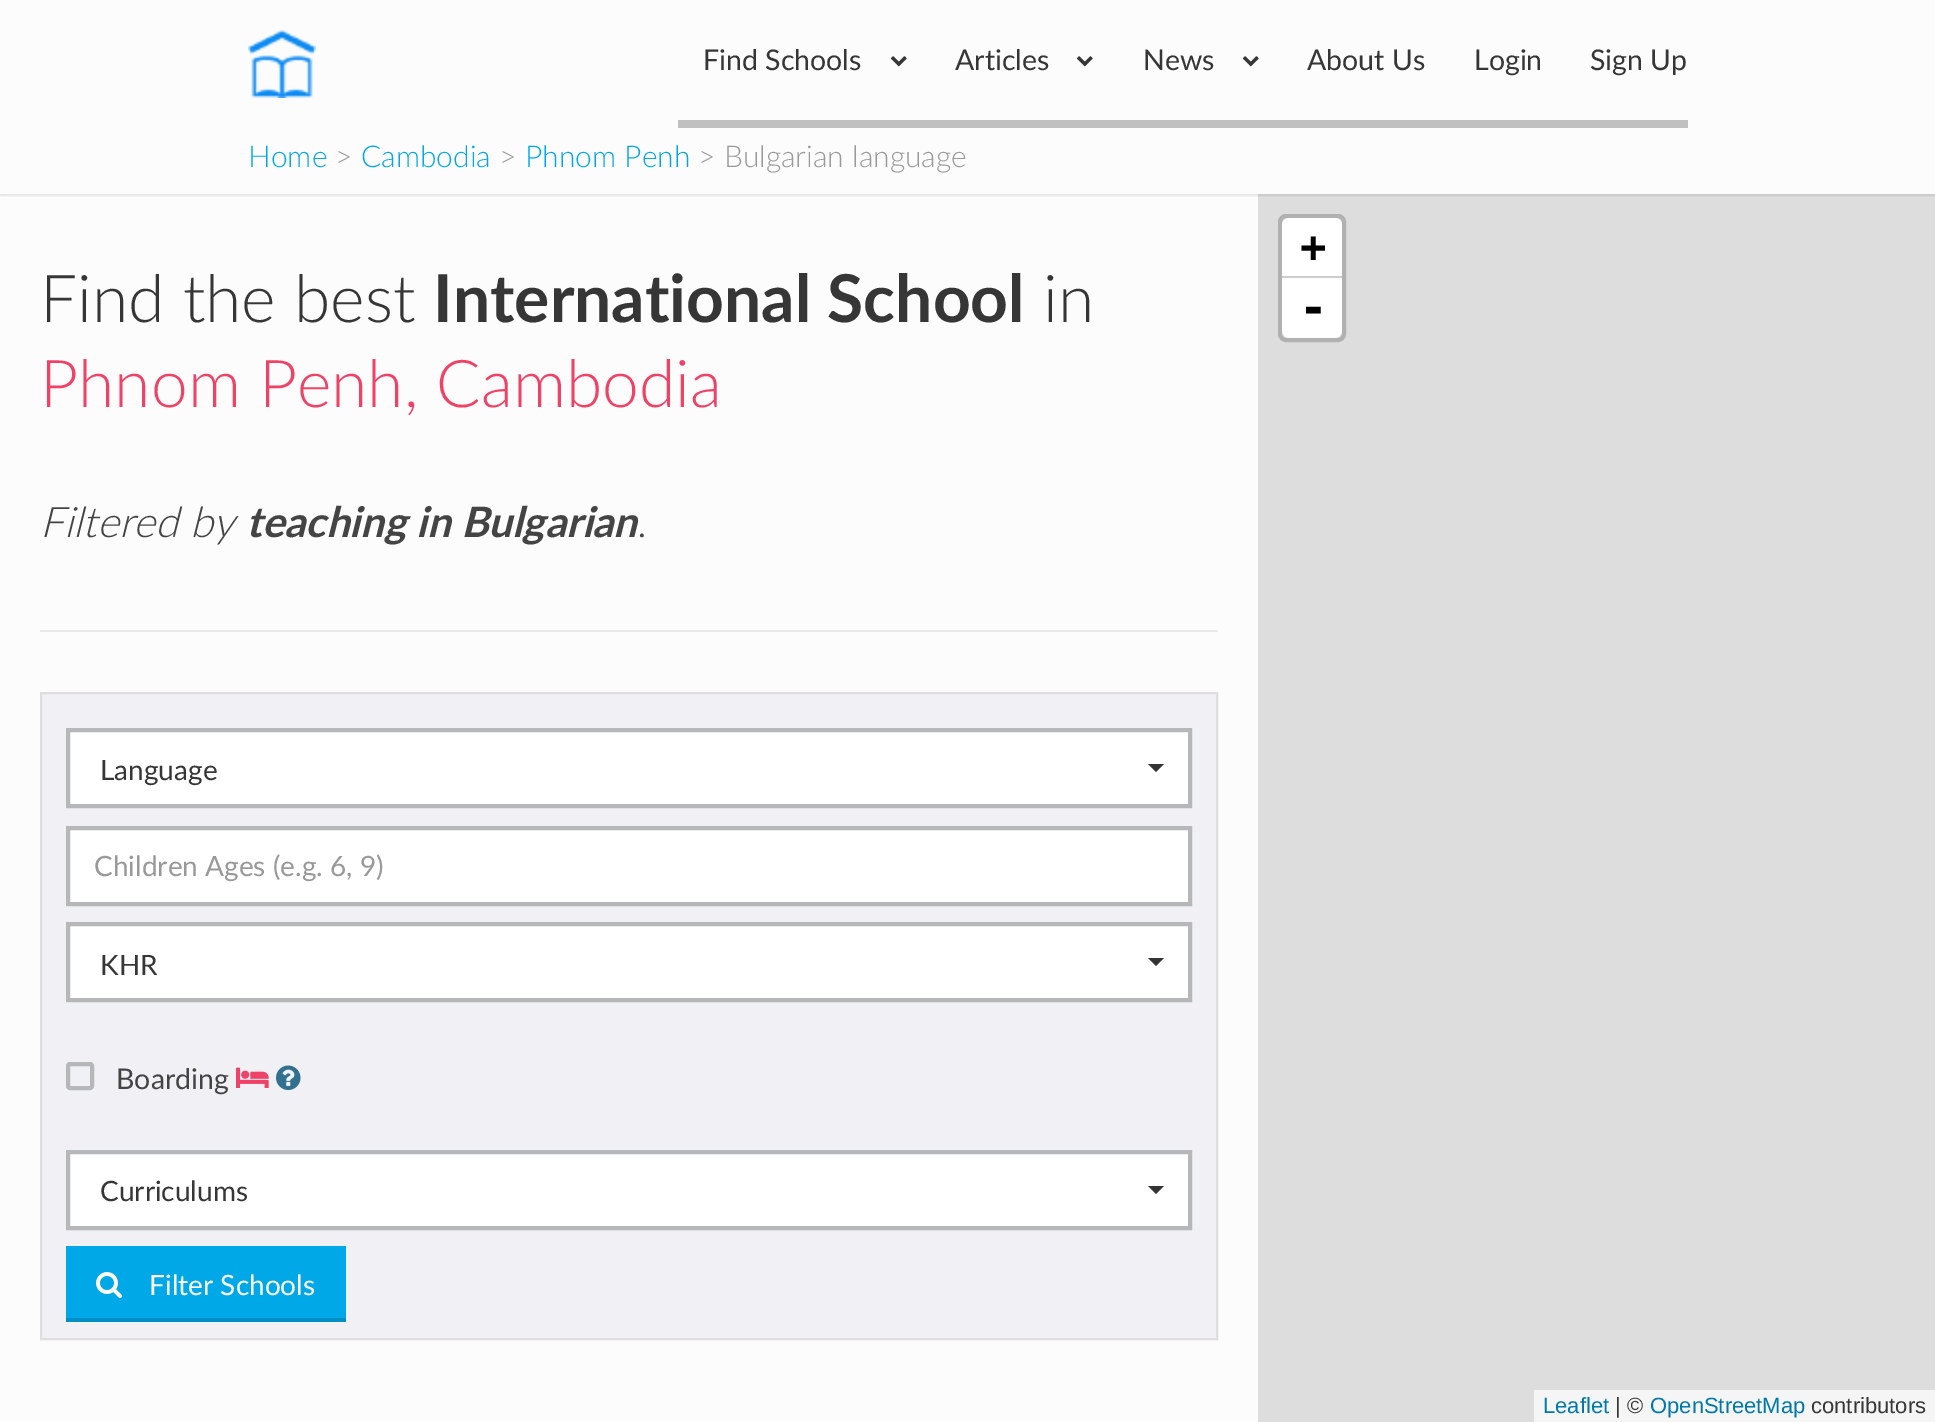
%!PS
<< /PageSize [1935 1422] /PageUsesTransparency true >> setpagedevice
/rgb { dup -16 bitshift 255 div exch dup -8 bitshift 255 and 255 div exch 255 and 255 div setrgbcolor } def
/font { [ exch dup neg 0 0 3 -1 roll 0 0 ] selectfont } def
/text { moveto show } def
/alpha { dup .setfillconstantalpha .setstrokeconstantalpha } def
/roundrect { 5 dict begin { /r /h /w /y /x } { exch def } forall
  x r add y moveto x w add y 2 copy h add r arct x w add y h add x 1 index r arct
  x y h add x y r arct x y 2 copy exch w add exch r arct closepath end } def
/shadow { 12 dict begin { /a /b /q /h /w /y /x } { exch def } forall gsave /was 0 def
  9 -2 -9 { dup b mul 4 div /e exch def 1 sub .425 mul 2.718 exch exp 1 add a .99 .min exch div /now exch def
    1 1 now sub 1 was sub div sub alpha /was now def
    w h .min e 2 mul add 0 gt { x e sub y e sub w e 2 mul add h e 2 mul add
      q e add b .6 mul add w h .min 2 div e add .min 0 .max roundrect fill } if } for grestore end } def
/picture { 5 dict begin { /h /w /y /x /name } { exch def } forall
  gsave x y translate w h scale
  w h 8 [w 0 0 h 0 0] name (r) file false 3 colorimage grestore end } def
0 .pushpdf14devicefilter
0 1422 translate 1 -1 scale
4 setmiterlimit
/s1 { /Lato-Regular 28.5 font 16#363636 rgb } def
/s2 { /Lato-Light 30 font 16#00A8E8 rgb } def
/s3 { /Lato-Light 30 font 16#999999 rgb } def
/s4 { /Lato-Light 66 font 16#363636 rgb } def
/s5 { /Lato-Bold 66 font 16#363636 rgb } def
/s6 { /Lato-Light 66 font 16#EE4266 rgb } def
/s7 { /Lato-LightItalic 42 font 16#444444 rgb } def
/s8 { /Lato-BoldItalic 42 font 16#444444 rgb } def
/s9 { /Lato-Light 42 font 16#444444 rgb } def
/s10 { /Lato-Regular 28 font 16#363636 rgb } def
/s11 { /Lato-Regular 28 font 16#999999 rgb } def
/s12 { /Lato-Regular 28.5 font 16#444444 rgb } def
/s13 { /Lato-Regular 28 font 16#FFFFFF rgb } def
/s14 { /DejaVuSansMono-Bold 44 font 16#000000 rgb } def
/s15 { /DejaVuSansMono-Bold 48 font 16#000000 rgb } def
/s16 { /LiberationSans-Regular 22 font 16#0078A8 rgb } def
/s17 { /LiberationSans-Regular 22 font 16#363636 rgb } def
16#FDFCFC rgb
0 0 1935 1422 rectfill
16#DDDDDD rgb
1258 194 677 1228 rectfill
gsave
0 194 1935 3 rectclip
16#000000 rgb
0 2 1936 194 0 1 0.1 shadow
grestore
(pic1.raw) 248 30 68 68 picture
16#C0C0C0 rgb
678 120 1010 8 rectfill
s1
(Find Schools) 703 70 text
(pic2.raw) 890 56 17 11 picture
(Articles) 955 70 text
(pic2.raw) 1076 56 17 11 picture
(News) 1143 70 text
(pic2.raw) 1242 56 17 11 picture
(About Us) 1307 70 text
(Login) 1474 70 text
(Sign Up) 1590 70 text
s2
(Home) 248 167 text
s3
(>) 335 167 text
s2
(Cambodia) 361 167 text
s3
(>) 499 167 text
s2
(Phnom Penh) 525 167 text
s3
(> Bulgarian language) 698 167 text
16#E9E9E9 rgb
40 630 1178 2 rectfill
s4
(Find the best) 40 322 text
s5
(International School) 433 322 text
s4
(in) 1043 322 text
s6
(Phnom Penh, Cambodia) 40 407 text
s7
(Filtered by) 40 537 text
s8
(teaching in Bulgarian) 246 537 text
s9
(.) 637 537 text
16#F1F1F5 rgb
41 693 moveto 1217 693 lineto 1217 1339 lineto 41 1339 lineto closepath gsave fill grestore
16#DFDDDD rgb
2 setlinewidth
stroke
16#FFFFFF rgb
68 730 moveto 1190 730 lineto 1190 806 lineto 68 806 lineto closepath gsave fill grestore
16#B6B7B8 rgb
4 setlinewidth
stroke
s10
(Language) 100 780 text
16#333333 rgb
1148 764 moveto 1164 764 lineto 1156 772 lineto closepath fill
16#FFFFFF rgb
68 828 moveto 1190 828 lineto 1190 904 lineto 68 904 lineto closepath gsave fill grestore
16#B6B7B8 rgb
stroke
s11
(Children Ages \(e.g. 6, 9\)) 94 876 text
16#FFFFFF rgb
68 924 moveto 1190 924 lineto 1190 1000 lineto 68 1000 lineto closepath gsave fill grestore
16#B6B7B8 rgb
stroke
s10
(KHR) 100 975 text
16#333333 rgb
1148 958 moveto 1164 958 lineto 1156 966 lineto closepath fill
16#B6B7B8 rgb
68 1064 24 24 2 roundrect stroke
s12
(Boarding) 116 1089 text
(pic3.raw) 236 1067 33 21 picture
(pic4.raw) 276 1065 25 25 picture
16#FFFFFF rgb
68 1152 moveto 1190 1152 lineto 1190 1228 lineto 68 1228 lineto closepath gsave fill grestore
16#B6B7B8 rgb
stroke
s10
(Curriculums) 100 1201 text
16#333333 rgb
1148 1186 moveto 1164 1186 lineto 1156 1194 lineto closepath fill
16#00A8E8 rgb
66 1246 280 72 rectfill
(pic5.raw) 96 1272 26 26 picture
s13
(Filter Schools) 149 1295 text
16#008FC5 rgb
66 1318 280 4 rectfill
16#B1B1B1 rgb
1280 216 64 124 6 roundrect stroke
16#FFFFFF rgb
1290 218 moveto 1334 218 lineto 1338.5 218 1342 221.5 1342 226 curveto 1342 278 lineto 1282 278 lineto 1282 226 lineto 1282 221.5 1285.5 218 1290 218 curveto closepath fill
16#CCCCCC rgb
1282 276 60 2 rectfill
s14
(+) 1300 262 text
16#FFFFFF rgb
1282 278 moveto 1342 278 lineto 1342 330 lineto 1342 334.5 1338.5 338 1334 338 curveto 1290 338 lineto 1285.5 338 1282 334.5 1282 330 curveto closepath fill
s15
(-) 1299 324 text
16#F5F5F5 rgb
1534 1390 401 32 rectfill
s16
(Leaflet) 1543 1413 text
s17
(| ©) 1615 1413 text
s16
(OpenStreetMap) 1650 1413 text
s17
(contributors) 1811 1413 text
.poppdf14devicefilter showpage
